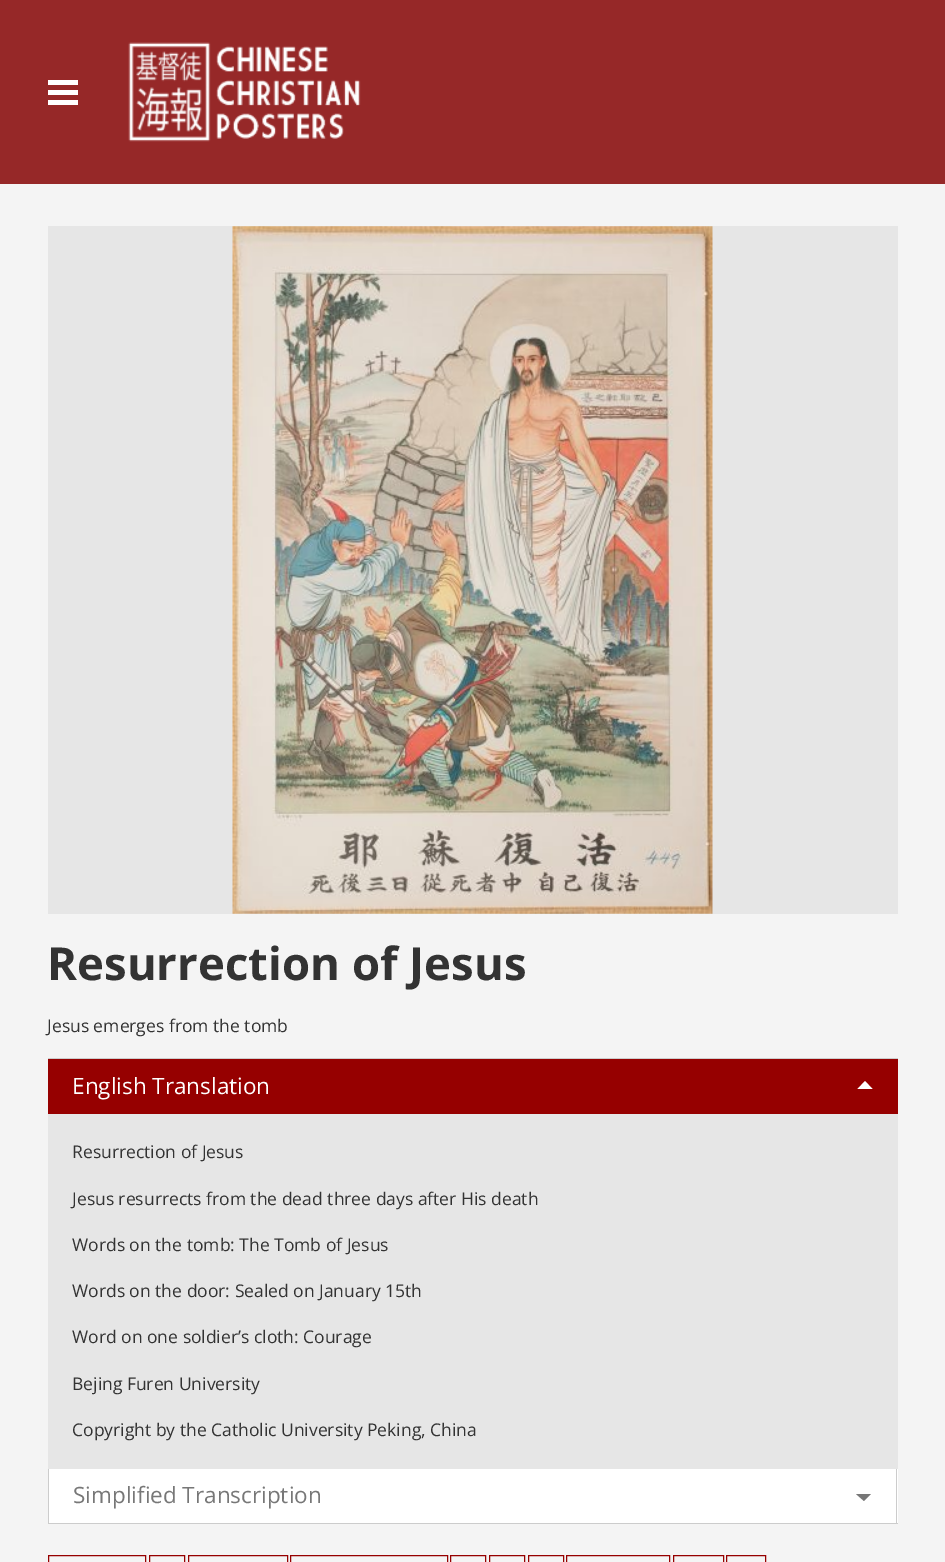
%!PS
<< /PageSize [945 1562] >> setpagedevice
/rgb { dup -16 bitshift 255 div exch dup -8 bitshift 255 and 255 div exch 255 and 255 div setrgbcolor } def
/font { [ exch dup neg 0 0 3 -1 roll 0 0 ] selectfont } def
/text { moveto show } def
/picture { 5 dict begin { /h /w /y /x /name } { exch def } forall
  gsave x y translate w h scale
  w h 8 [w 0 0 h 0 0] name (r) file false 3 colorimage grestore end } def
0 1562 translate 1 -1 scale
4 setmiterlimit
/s1 { /OpenSans-Bold 45.5 font 16#333333 rgb } def
/s2 { /OpenSans-Regular 17.5 font 16#333333 rgb } def
/s3 { /OpenSans-Regular 22.5 font 16#FFFFFF rgb } def
/s4 { /OpenSans-Regular 22.5 font 16#777777 rgb } def
16#962828 rgb
0 0 945 1562 rectfill
16#FFFFFF rgb
48 80 30 5 rectfill
48 90 30 5 rectfill
48 100 30 5 rectfill
(pic1.raw) 128 42 233 100 picture
16#F4F4F4 rgb
0 184 945 1378 rectfill
16#E6E6E6 rgb
48 226 850 688 rectfill
(pic2.raw) 232 226 481 688 picture
s1
(Resurrection of Jesus) 47 980 text
s2
(Jesus emerges from the tomb) 47 1032 text
16#CCCCCC rgb
48 1058 850 1 rectfill
16#960000 rgb
48 1059 850 55 rectfill
s3
(English Translation) 72 1094 text
872.5 1089 moveto 857.5 1089 lineto 865 1081 lineto closepath fill
16#E6E6E6 rgb
48 1114 850 355 rectfill
s2
(Resurrection of Jesus) 72 1158 text
(Jesus resurrects from the dead three days after His death) 72 1205 text
(Words on the tomb: The Tomb of Jesus) 72 1251 text
(Words on the door: Sealed on January 15th) 72 1297 text
(Word on one soldier’s cloth: Courage) 72 1343 text
(Bejing Furen University) 72 1390 text
(Copyright by the Catholic University Peking, China) 72 1436 text
16#FFFFFF rgb
49 1469 849 54 rectfill
16#CCCCCC rgb
896 1469 1 55 rectfill
48 1523 850 1 rectfill
48 1469 1 55 rectfill
s4
(Simplified Transcription) 73 1503 text
856 1494 moveto 871 1494 lineto 864 1501 lineto closepath fill
16#960000 rgb
48.5 1555.5 97 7 rectstroke
149.5 1555.5 35 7 rectstroke
188.5 1555.5 99 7 rectstroke
290.5 1555.5 157 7 rectstroke
450.5 1555.5 35 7 rectstroke
489.5 1555.5 35 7 rectstroke
528.5 1555.5 35 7 rectstroke
566.5 1555.5 103 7 rectstroke
673.5 1555.5 50 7 rectstroke
726.5 1555.5 39 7 rectstroke
showpage
